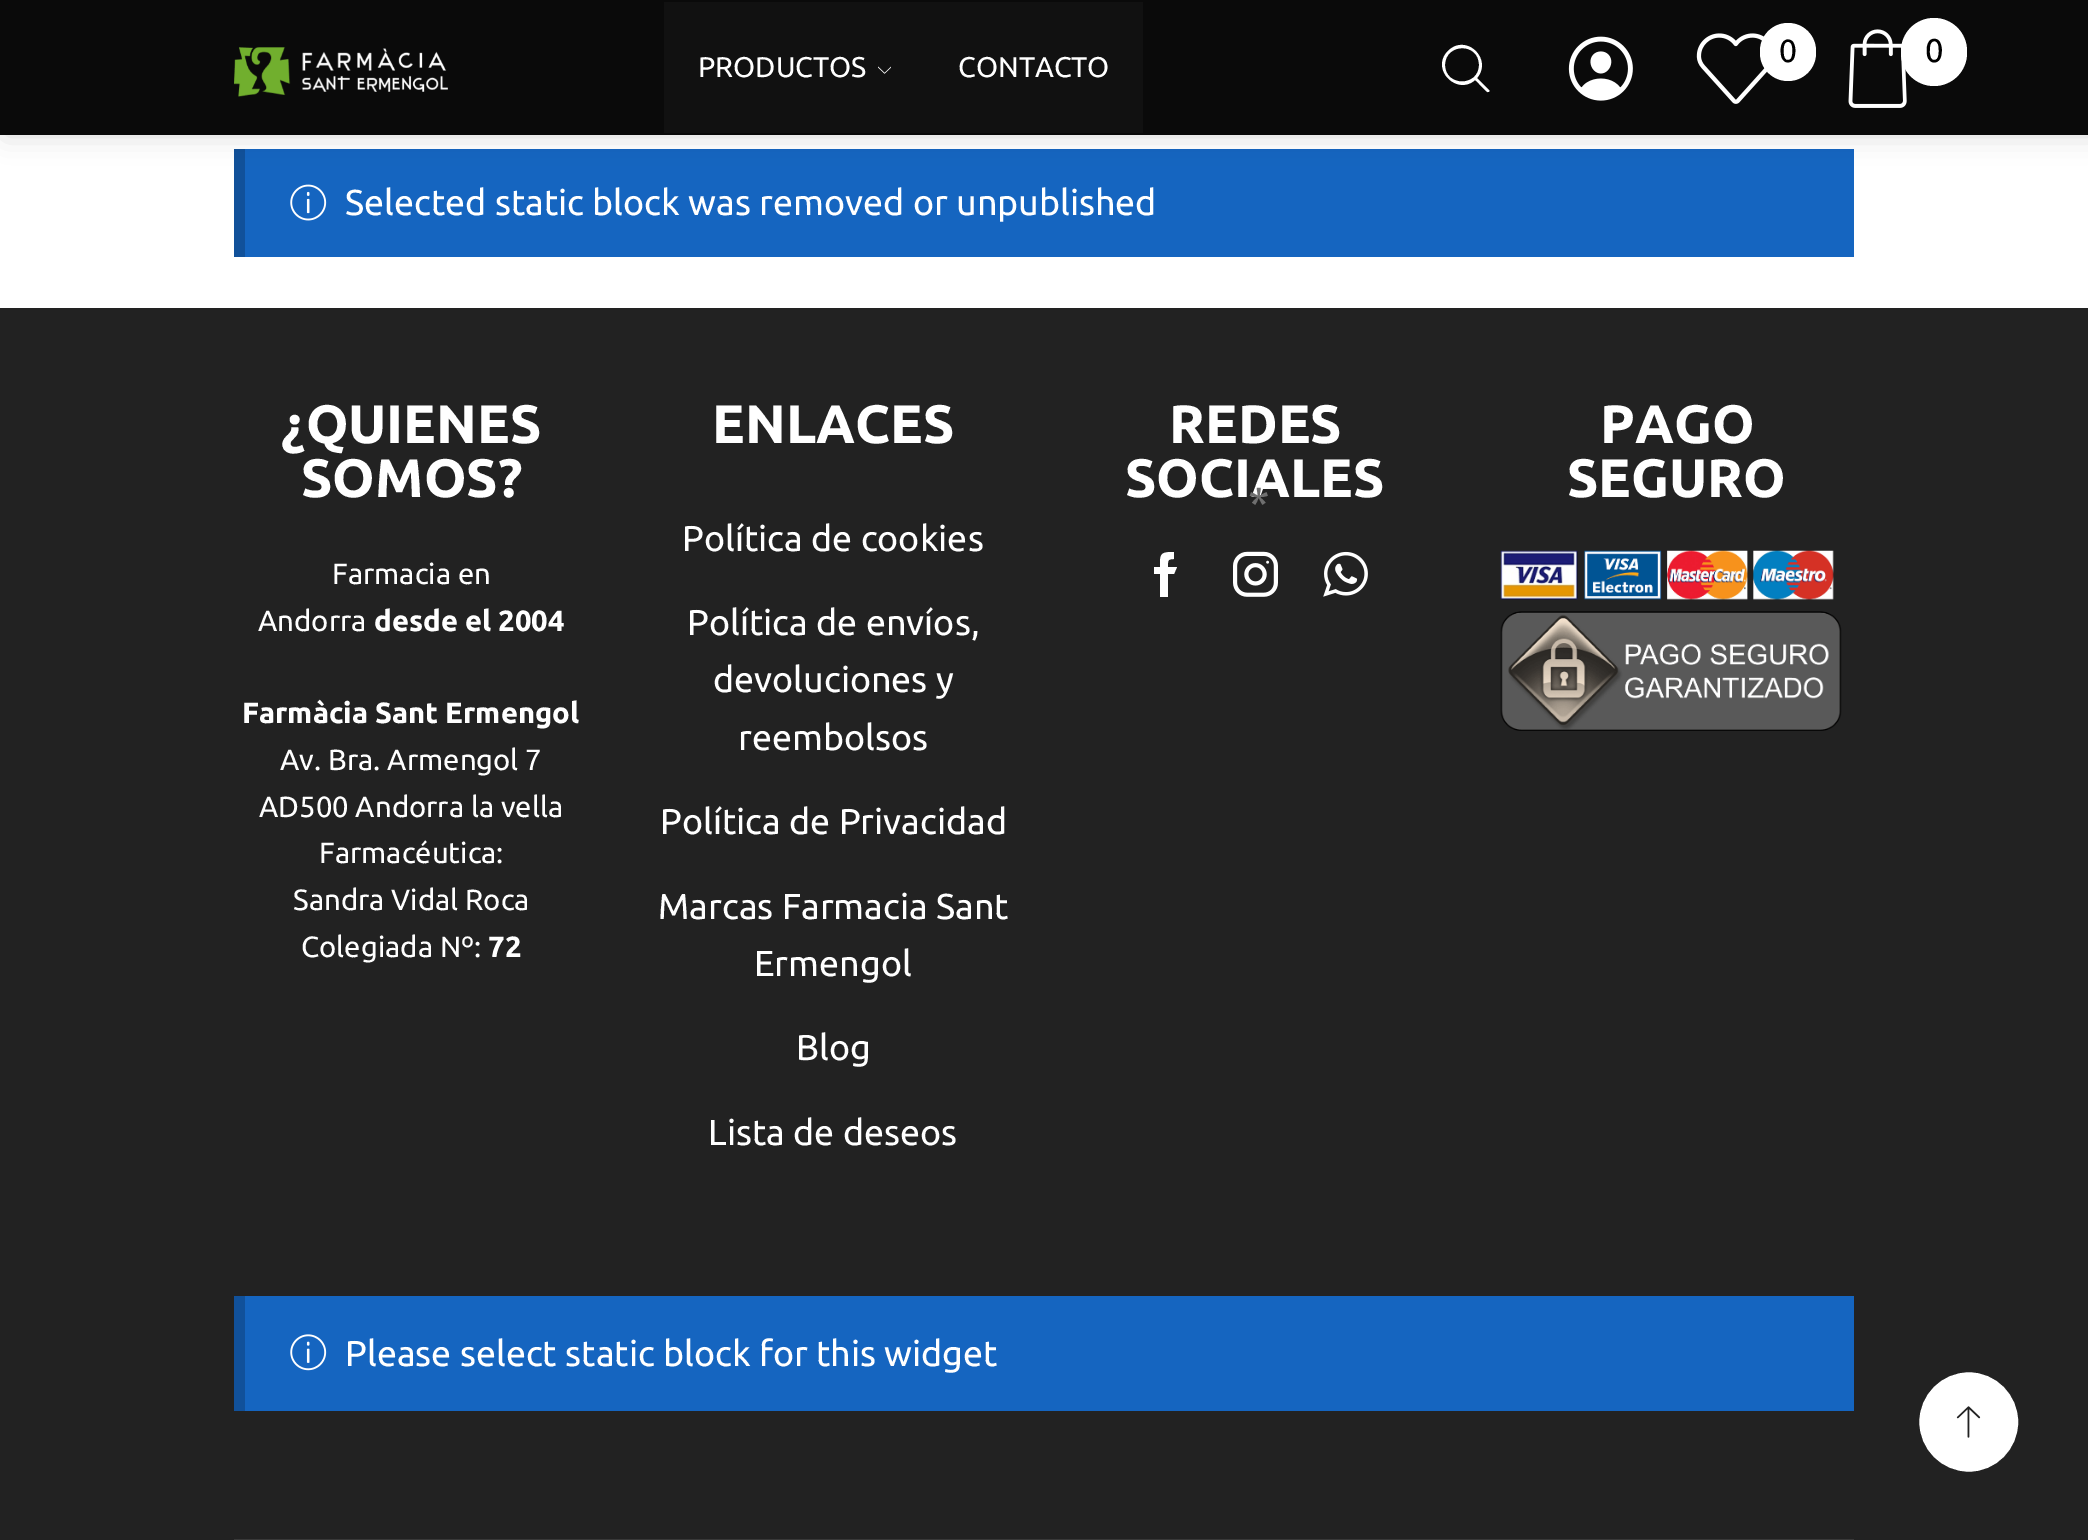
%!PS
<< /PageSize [2088 1540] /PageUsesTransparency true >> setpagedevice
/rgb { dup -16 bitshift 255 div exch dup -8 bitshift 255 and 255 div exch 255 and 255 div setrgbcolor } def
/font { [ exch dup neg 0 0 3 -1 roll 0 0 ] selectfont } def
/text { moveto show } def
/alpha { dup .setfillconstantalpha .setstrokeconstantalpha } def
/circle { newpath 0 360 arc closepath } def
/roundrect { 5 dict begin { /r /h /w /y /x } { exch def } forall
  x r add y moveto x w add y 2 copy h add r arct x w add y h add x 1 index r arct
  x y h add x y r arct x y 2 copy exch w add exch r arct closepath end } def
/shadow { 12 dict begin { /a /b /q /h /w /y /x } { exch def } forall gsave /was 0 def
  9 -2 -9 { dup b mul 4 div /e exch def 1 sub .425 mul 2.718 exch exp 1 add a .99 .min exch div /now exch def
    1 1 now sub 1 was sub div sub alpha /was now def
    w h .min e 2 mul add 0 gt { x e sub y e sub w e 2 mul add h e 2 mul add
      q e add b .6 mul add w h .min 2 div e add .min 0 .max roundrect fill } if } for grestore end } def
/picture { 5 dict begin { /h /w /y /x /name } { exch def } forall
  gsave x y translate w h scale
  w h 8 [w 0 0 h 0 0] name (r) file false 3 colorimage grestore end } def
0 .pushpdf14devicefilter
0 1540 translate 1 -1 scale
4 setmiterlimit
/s1 { /Ubuntu-Regular 32 font 16#000000 rgb } def
/s2 { /Ubuntu-Regular 33 font 16#000000 rgb } def
/s3 { /Ubuntu-Bold 54 font 16#FFFFFF rgb } def
/s4 { /Ubuntu-Regular 45 font 16#6F6F6F rgb } def
/s5 { /Ubuntu-Regular 28.5 font 16#FFFFFF rgb } def
/s6 { /Ubuntu-Regular 35.9 font 16#FFFFFF rgb } def
/s7 { /Ubuntu-Regular 29.25 font 16#FFFFFF rgb } def
/s8 { /Ubuntu-Bold 29.25 font 16#FFFFFF rgb } def
16#FFFFFF rgb
0 0 2088 1540 rectfill
16#1565C0 rgb
245 149 1609 108 rectfill
16#11519A rgb
234 149 11 108 rectfill
16#000000 rgb
5 0 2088 135 0 13.5 0.15 shadow
16#0A0A0A rgb
0 0 2088 135 rectfill
(pic1.raw) 1696 33 72 71 picture
16#FFFFFF rgb
1760 23 56 58 28 roundrect fill
s1
(0) 1779 62 text
(pic2.raw) 1848 29 59 79 picture
16#FFFFFF rgb
1901 18 66 68 33 roundrect fill
s2
(0) 1925 62 text
(pic3.raw) 1568 36 65 65 picture
16#222222 rgb
0 308 2088 1232 rectfill
s3
(SOCIALES) 1125 497 text
s4
(*) 1248 519 text
(pic4.raw) 234 47 214 50 picture
16#111111 rgb
664 2 479 131 rectfill
s5
(PRODUCTOS) 698 77 text
(pic5.raw) 878 66 13 8 picture
(CONTACTO) 958 77 text
1489 90 moveto 1477 78 lineto 1493 59 1466 33 1448 51 curveto 1430 69 1457 96 1475 80 curveto 1477 81 1487 93 1488 92 curveto 1489 92 1490 91 1489 90 curveto closepath 1479 65 moveto 1479 87 1445 87 1445 65 curveto 1445 43 1479 42 1479 65 curveto closepath fill
(pic6.raw) 290 184 37 37 picture
s6
(Selected static block was removed or unpublished) 345 215 text
s3
(¿QUIENES) 281 443 text
(SOMOS?) 301 497 text
s7
(Farmacia en) 332 584 text
(Andorra) 258 631 text
s8
(desde el 2004) 374 631 text
(Farmàcia Sant Ermengol) 242 723 text
s7
(Av. Bra. Armengol 7) 280 770 text
(AD500 Andorra la vella) 259 817 text
(Farmacéutica:) 319 863 text
(Sandra Vidal Roca) 293 910 text
(Colegiada Nº:) 301 957 text
s8
(72) 488 957 text
s3
(ENLACES) 712 443 text
s6
(Política de cookies) 682 551 text
(Política de envíos,) 687 635 text
(devoluciones y) 713 692 text
(reembolsos) 738 750 text
(Política de Privacidad) 660 834 text
(Marcas Farmacia Sant) 658 919 text
(Ermengol) 754 976 text
(Blog) 796 1060 text
(Lista de deseos) 708 1145 text
s3
(REDES) 1169 443 text
1168 567 moveto 1168 561 1167 559 1174 559 curveto 1174 552 lineto 1160 552 1160 554 1160 567 curveto 1154 567 lineto 1154 574 lineto 1160 574 lineto 1160 597 lineto 1168 597 lineto 1168 574 lineto 1174 574 lineto 1177 567 lineto closepath fill
(pic7.raw) 1233 551 45 46 picture
(pic8.raw) 1323 551 45 46 picture
(PAGO) 1600 443 text
(SEGURO) 1567 497 text
(pic9.raw) 1500 550 342 181 picture
16#1565C0 rgb
245 1296 1609 115 rectfill
16#11519A rgb
234 1296 11 115 rectfill
(pic10.raw) 290 1334 37 37 picture
s6
(Please select static block for this widget) 345 1366 text
16#393939 rgb
234 1539 1620 1 rectfill
16#FFFFFF rgb
1969 1422 51 circle gsave fill grestore
16#E1E1E1 rgb
2 setlinewidth
stroke
gsave
1915 1368 108 108 rectclip
16#222222 rgb
4.2 setlinewidth
1969 1370 moveto 1997.5 1370 2020.5 1393.5 2020.5 1422 curveto 2020.5 1450.5 1997.5 1474 1969 1474 curveto 1940 1474 1917 1450.5 1917 1422 curveto 1917 1393.5 1940 1370 1969 1370 curveto stroke
grestore
(pic11.raw) 1956 1406 25 32 picture
.poppdf14devicefilter showpage
